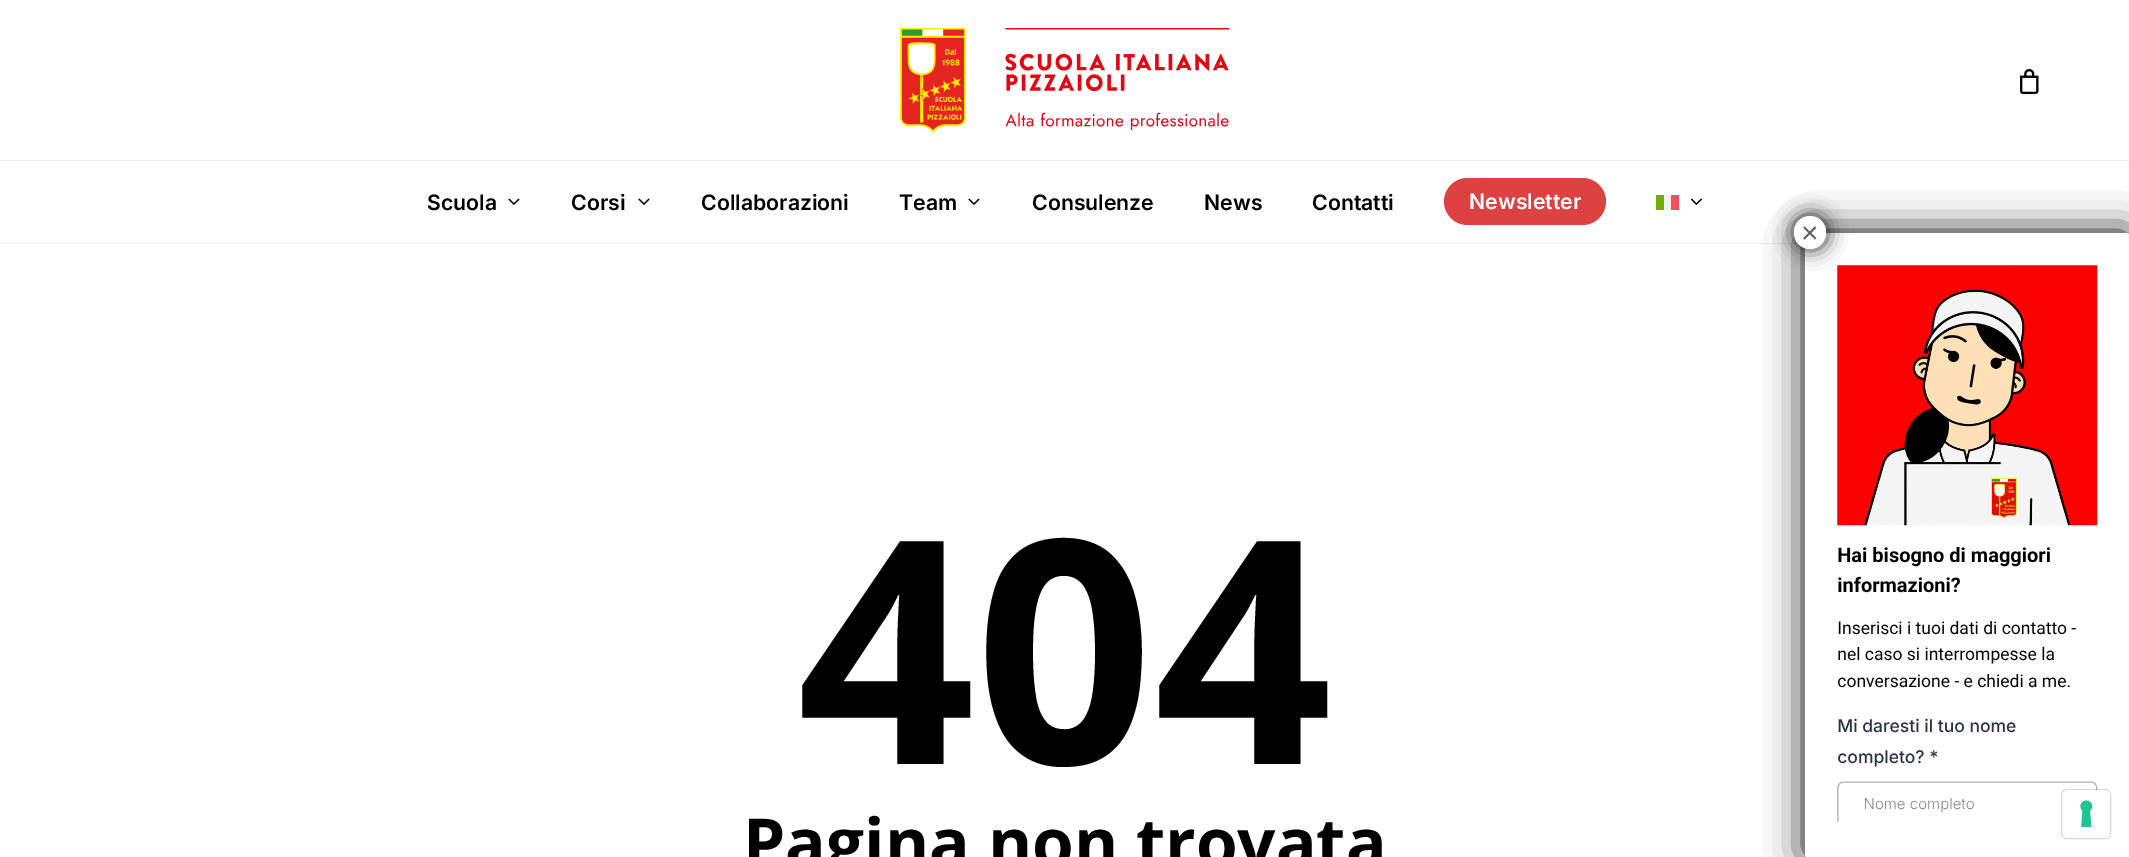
%!PS
<< /PageSize [2129 857] /PageUsesTransparency true >> setpagedevice
/rgb { dup -16 bitshift 255 div exch dup -8 bitshift 255 and 255 div exch 255 and 255 div setrgbcolor } def
/font { [ exch dup neg 0 0 3 -1 roll 0 0 ] selectfont } def
/text { moveto show } def
/alpha { dup .setfillconstantalpha .setstrokeconstantalpha } def
/roundrect { 5 dict begin { /r /h /w /y /x } { exch def } forall
  x r add y moveto x w add y 2 copy h add r arct x w add y h add x 1 index r arct
  x y h add x y r arct x y 2 copy exch w add exch r arct closepath end } def
/shadow { 12 dict begin { /a /b /q /h /w /y /x } { exch def } forall gsave /was 0 def
  9 -2 -9 { dup b mul 4 div /e exch def 1 sub .425 mul 2.718 exch exp 1 add a .99 .min exch div /now exch def
    1 1 now sub 1 was sub div sub alpha /was now def
    w h .min e 2 mul add 0 gt { x e sub y e sub w e 2 mul add h e 2 mul add
      q e add b .6 mul add w h .min 2 div e add .min 0 .max roundrect fill } if } for grestore end } def
/picture { 5 dict begin { /h /w /y /x /name } { exch def } forall
  gsave x y translate w h scale
  w h 8 [w 0 0 h 0 0] name (r) file false 3 colorimage grestore end } def
0 .pushpdf14devicefilter
0 857 translate 1 -1 scale
4 setmiterlimit
/s1 { /Inter-SemiBold 21.25 font 16#000000 rgb } def
/s2 { /Inter-SemiBold 21.25 font 16#FFFFFF rgb } def
/s3 { /OpenSans-Bold 312 font 16#000000 rgb } def
/s4 { /OpenSans-Bold 67.5 font 16#000000 rgb } def
/s5 { /LiberationSans-Regular 30 font 16#636363 rgb } def
16#FFFFFF rgb
0 0 2129 857 rectfill
16#EBEBEB rgb
0 243 1799 1 rectfill
(pic1.raw) 900 28 330 105 picture
(pic2.raw) 2020 69 19 26 picture
0 160 2129 1 rectfill
s1
(Scuola) 427 210 text
(pic3.raw) 508 198 12 7 picture
(Corsi) 571 210 text
(pic3.raw) 638 198 12 7 picture
(Collaborazioni) 701 210 text
(Team) 899 210 text
(pic3.raw) 968 198 12 7 picture
(Consulenze) 1032 210 text
(News) 1204 210 text
(Contatti) 1312 210 text
16#DD4141 rgb
1444 178 162 47 23.5 roundrect fill
s2
(Newsletter) 1469 209 text
16#73AF00 rgb
1656 195 8 15 rectfill
16#F0F0F0 rgb
1664 195 7 15 rectfill
16#FF4B55 rgb
1671 195 8 15 rectfill
(pic4.raw) 1690 198 12 7 picture
s3
(404) 797 764 text
s4
(Pagina non trovata) 743 867 text
16#020202 rgb
1805 233 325 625 4 19 1 shadow
16#FFFFFF rgb
1805 233 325 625 4 roundrect fill
(pic5.raw) 1837 265 261 557 picture
16#020202 rgb
1793 215 35 35 17.5 9.5 0.75 shadow
16#FFFFFF rgb
1794 216 32 33 16 roundrect fill
s5
(×) 1801 243 text
0.15 alpha
16#000000 rgb
2061.5 789.5 49 49 5.5 roundrect stroke
1 alpha
16#FFFFFF rgb
2063 790 47 48 5 roundrect fill
(pic6.raw) 2080 800 13 28 picture
.poppdf14devicefilter showpage
